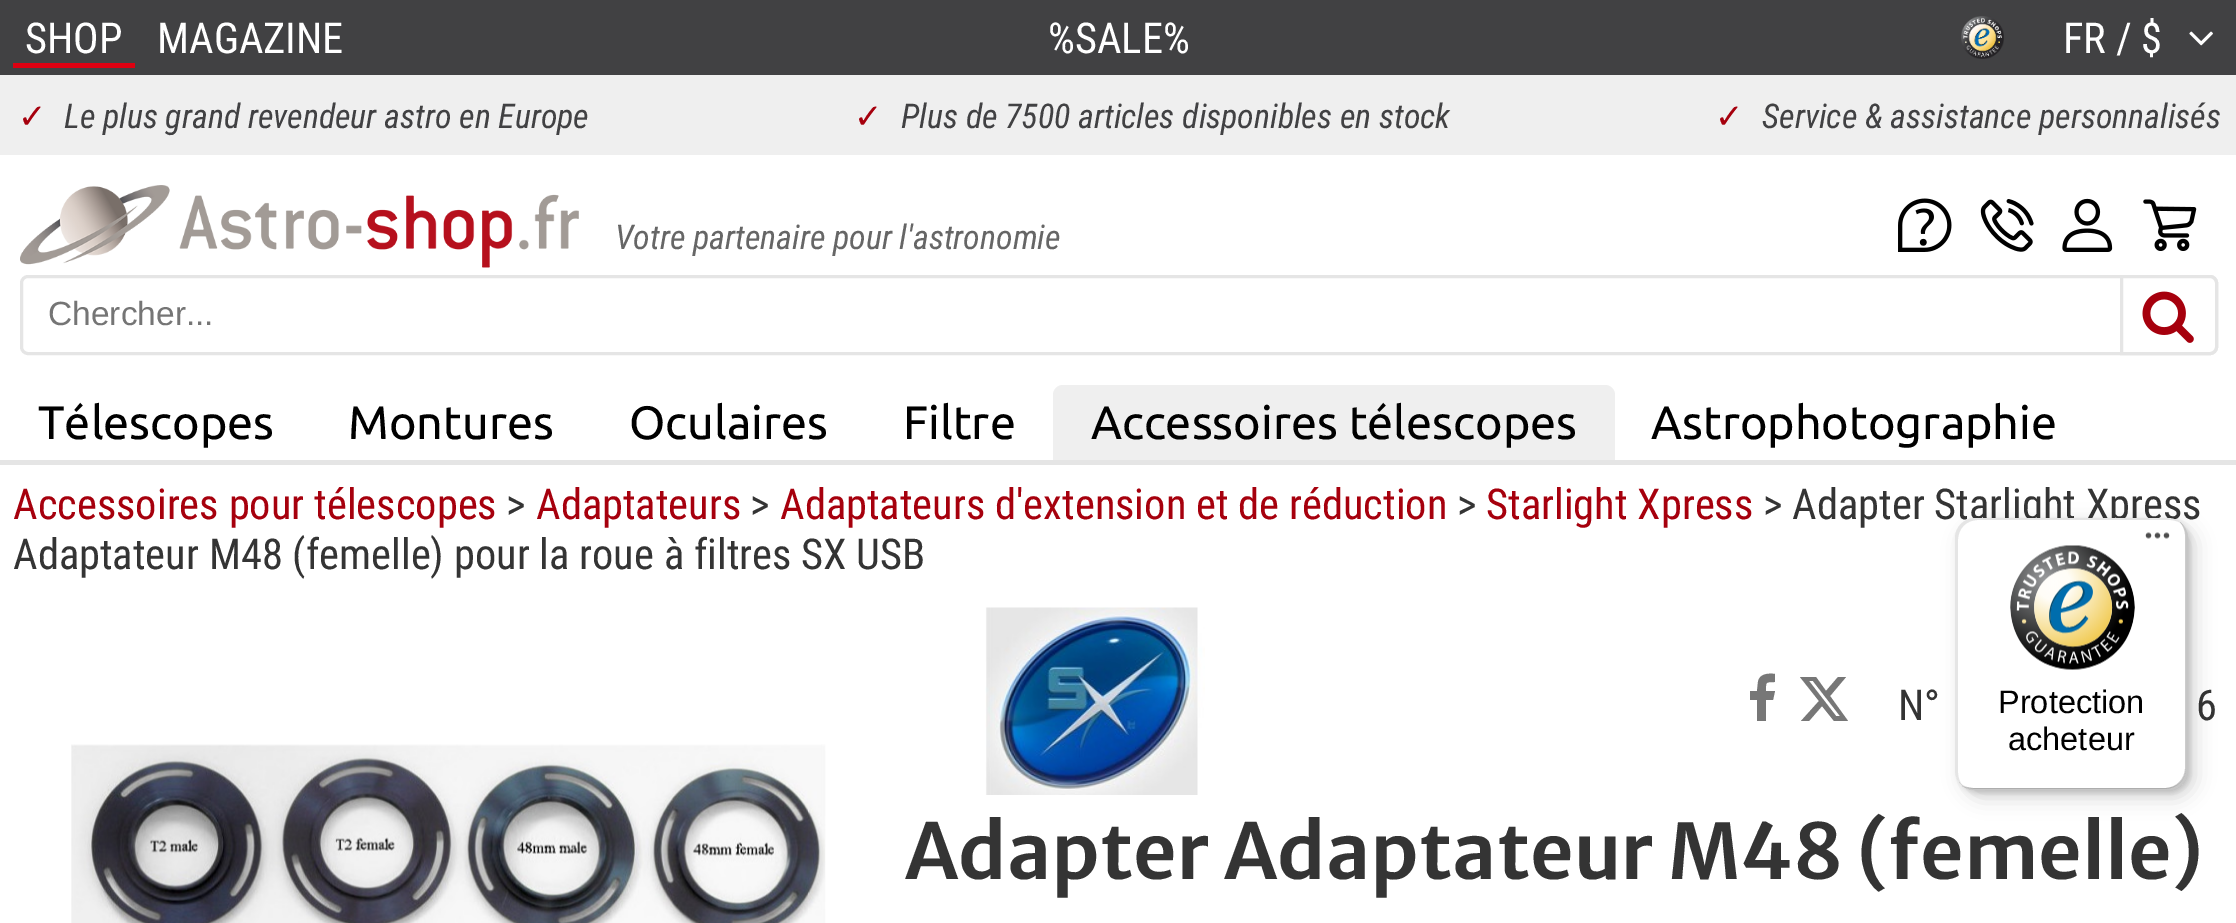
%!PS
<< /PageSize [2236 923] /PageUsesTransparency true >> setpagedevice
/rgb { dup -16 bitshift 255 div exch dup -8 bitshift 255 and 255 div exch 255 and 255 div setrgbcolor } def
/font { [ exch dup neg 0 0 3 -1 roll 0 0 ] selectfont } def
/text { moveto show } def
/alpha { dup .setfillconstantalpha .setstrokeconstantalpha } def
/roundrect { 5 dict begin { /r /h /w /y /x } { exch def } forall
  x r add y moveto x w add y 2 copy h add r arct x w add y h add x 1 index r arct
  x y h add x y r arct x y 2 copy exch w add exch r arct closepath end } def
/shadow { 12 dict begin { /a /b /q /h /w /y /x } { exch def } forall gsave /was 0 def
  9 -2 -9 { dup b mul 4 div /e exch def 1 sub .425 mul 2.718 exch exp 1 add a .99 .min exch div /now exch def
    1 1 now sub 1 was sub div sub alpha /was now def
    w h .min e 2 mul add 0 gt { x e sub y e sub w e 2 mul add h e 2 mul add
      q e add b .6 mul add w h .min 2 div e add .min 0 .max roundrect fill } if } for grestore end } def
/picture { 5 dict begin { /h /w /y /x /name } { exch def } forall
  gsave x y translate w h scale
  w h 8 [w 0 0 h 0 0] name (r) file false 3 colorimage grestore end } def
0 .pushpdf14devicefilter
0 923 translate 1 -1 scale
4 setmiterlimit
/s1 { /RobotoCondensed-Regular 42.5 font 16#FFFFFF rgb } def
/s2 { /DejaVuSans-Regular 34 font 16#A6000D rgb } def
/s3 { /RobotoCondensed-Italic 34 font 16#414143 rgb } def
/s4 { /RobotoCondensed-Italic 34 font 16#666666 rgb } def
/s5 { /LiberationSans-Regular 33.5 font 16#757575 rgb } def
/s6 { /Ubuntu-Regular 46.75 font 16#000000 rgb } def
/s7 { /RobotoCondensed-Regular 42.5 font 16#A6000D rgb } def
/s8 { /RobotoCondensed-Regular 42.5 font 16#343434 rgb } def
/s9 { /MerriweatherSans-SemiBold 76.5 font 16#343434 rgb } def
/s10 { /LiberationSans-Regular 32.5 font 16#000000 rgb } def
16#FFFFFF rgb
0 0 2236 923 rectfill
16#414143 rgb
0 0 2236 75 rectfill
s1
(SHOP) 25 53 text
16#DD0011 rgb
13 63 122 5 rectfill
s1
(MAGAZINE) 157 53 text
(%SALE%) 1048 53 text
(pic1.raw) 1961 16 43 43 picture
(FR / $) 2063 53 text
(pic2.raw) 2189 31 24 15 picture
16#EFEFEF rgb
0 75 2236 80 rectfill
s2
(✓) 18 128 text
s3
(Le plus grand revendeur astro en Europe) 64 128 text
s2
(✓) 854 128 text
s3
(Plus de 7500 articles disponibles en stock) 901 128 text
s2
(✓) 1715 128 text
s3
(Service & assistance personnalisés) 1762 128 text
(pic3.raw) 20 185 559 83 picture
s4
(Votre partenaire pour l'astronomie) 615 249 text
(pic4.raw) 1898 198 54 54 picture
(pic5.raw) 1980 199 54 53 picture
(pic6.raw) 2062 198 51 54 picture
(pic7.raw) 2143 199 54 52 picture
16#E5E5E5 rgb
3 setlinewidth
21.5 276.5 2195 77 6.5 roundrect stroke
s5
(Chercher...) 48 325 text
16#FFFFFF rgb
2121.5 276.5 moveto 2210 276.5 lineto 2213.5 276.5 2216.5 279.5 2216.5 283 curveto 2216.5 347 lineto 2216.5 350.5 2213.5 353.5 2210 353.5 curveto 2121.5 353.5 lineto closepath gsave fill grestore
16#E5E5E5 rgb
stroke
(pic8.raw) 2142 291 52 52 picture
s6
(Télescopes) 38 439 text
(Montures) 348 439 text
(Oculaires) 629 439 text
(Filtre) 903 439 text
16#EFEFEF rgb
1063 385 moveto 1605 385 lineto 1610.5 385 1615 389.5 1615 395 curveto 1615 460 lineto 1053 460 lineto 1053 395 lineto 1053 389.5 1057.5 385 1063 385 curveto closepath fill
s6
(Accessoires télescopes) 1091 439 text
(Astrophotographie) 1651 439 text
16#E5E5E5 rgb
0 460 2236 5 rectfill
s7
(Accessoires pour télescopes) 13 519 text
s8
(>) 506 519 text
s7
(Adaptateurs) 536 519 text
s8
(>) 750 519 text
s7
(Adaptateurs d'extension et de réduction) 780 519 text
s8
(>) 1457 519 text
s7
(Starlight Xpress) 1486 519 text
s8
(> Adapter Starlight Xpress) 1763 519 text
(Adaptateur M48 \(femelle\) pour la roue à filtres SX USB) 13 569 text
(pic9.raw) 71 744 755 179 picture
(pic10.raw) 985 607 220 188 picture
16#777777 rgb
1775 674 moveto 1775 682 lineto 1765 682 1766 682 1766 691 curveto 1775 691 lineto 1773 700 lineto 1766 700 lineto 1766 721 lineto 1757 721 lineto 1757 700 lineto 1750 700 lineto 1750 691 lineto 1757 691 lineto 1758 682 lineto 1759 674 1768 673 1775 674 curveto closepath fill
1838 677 moveto 1846 677 lineto 1830 696 lineto 1848 721 lineto 1834 721 lineto 1822 706 lineto 1809 721 lineto 1801 721 lineto 1819 701 lineto 1800 677 lineto 1816 677 lineto 1826 691 lineto closepath 1836 716 moveto 1840 716 lineto 1813 681 lineto 1809 681 lineto closepath fill
s8
(N°) 1898 720 text
(6) 2196 720 text
s9
(Adapter Adaptateur M48 \(femelle\)) 905 879 text
16#000000 rgb
1963 525 232 273 20 10 0.15 shadow
1958 520 232 273 20 2.5 0.15 shadow
16#FFFFFF rgb
1955 518 233 272 20 roundrect fill
0.1 alpha
16#000000 rgb
1978 520 moveto 2170 520 lineto 2175 520 2180 522 2183 525 curveto 2180 521 2174 518 2168 518 curveto 1975 518 lineto 1964 518 1955 527 1955 538 curveto 1955 770 lineto 1955 777 1958 782 1963 786 curveto 1960 783 1958 778 1958 772 curveto 1958 540 lineto 1958 529 1966 520 1978 520 curveto closepath fill
0.2 alpha
1962 786 moveto 1966 788 1970 790 1975 790 curveto 2168 790 lineto 2179 790 2188 781 2188 770 curveto 2188 538 lineto 2188 532 2185 526 2180 522 curveto 2183 526 2185 530 2185 535 curveto 2185 768 lineto 2185 779 2176 788 2165 788 curveto 1972 788 lineto 1969 788 1965 787 1962 786 curveto closepath fill
16#323232 rgb
1959 782 moveto 1963 787 1968 790 1975 790 curveto 2168 790 lineto 2179 790 2188 781 2188 770 curveto 2188 538 lineto 2188 532 2185 526 2181 523 curveto 2184 526 2186 531 2186 536 curveto 2186 768 lineto 2186 780 2177 788 2166 788 curveto 1974 788 lineto 1968 788 1962 786 1959 782 curveto closepath fill
0.3 alpha
16#FFFFFF rgb
1960 783 moveto 1964 787 1969 790 1975 790 curveto 2168 790 lineto 2179 790 2188 781 2188 770 curveto 2188 538 lineto 2188 532 2185 526 2181 523 curveto 2184 526 2186 531 2186 536 curveto 2186 769 lineto 2186 780 2177 789 2166 789 curveto 1974 789 lineto 1969 789 1964 787 1960 783 curveto closepath fill
1 alpha
(pic11.raw) 2145 532 25 7 picture
(pic12.raw) 2010 545 125 125 picture
s10
(Protection) 1998 713 text
(acheteur) 2008 750 text
.poppdf14devicefilter showpage
